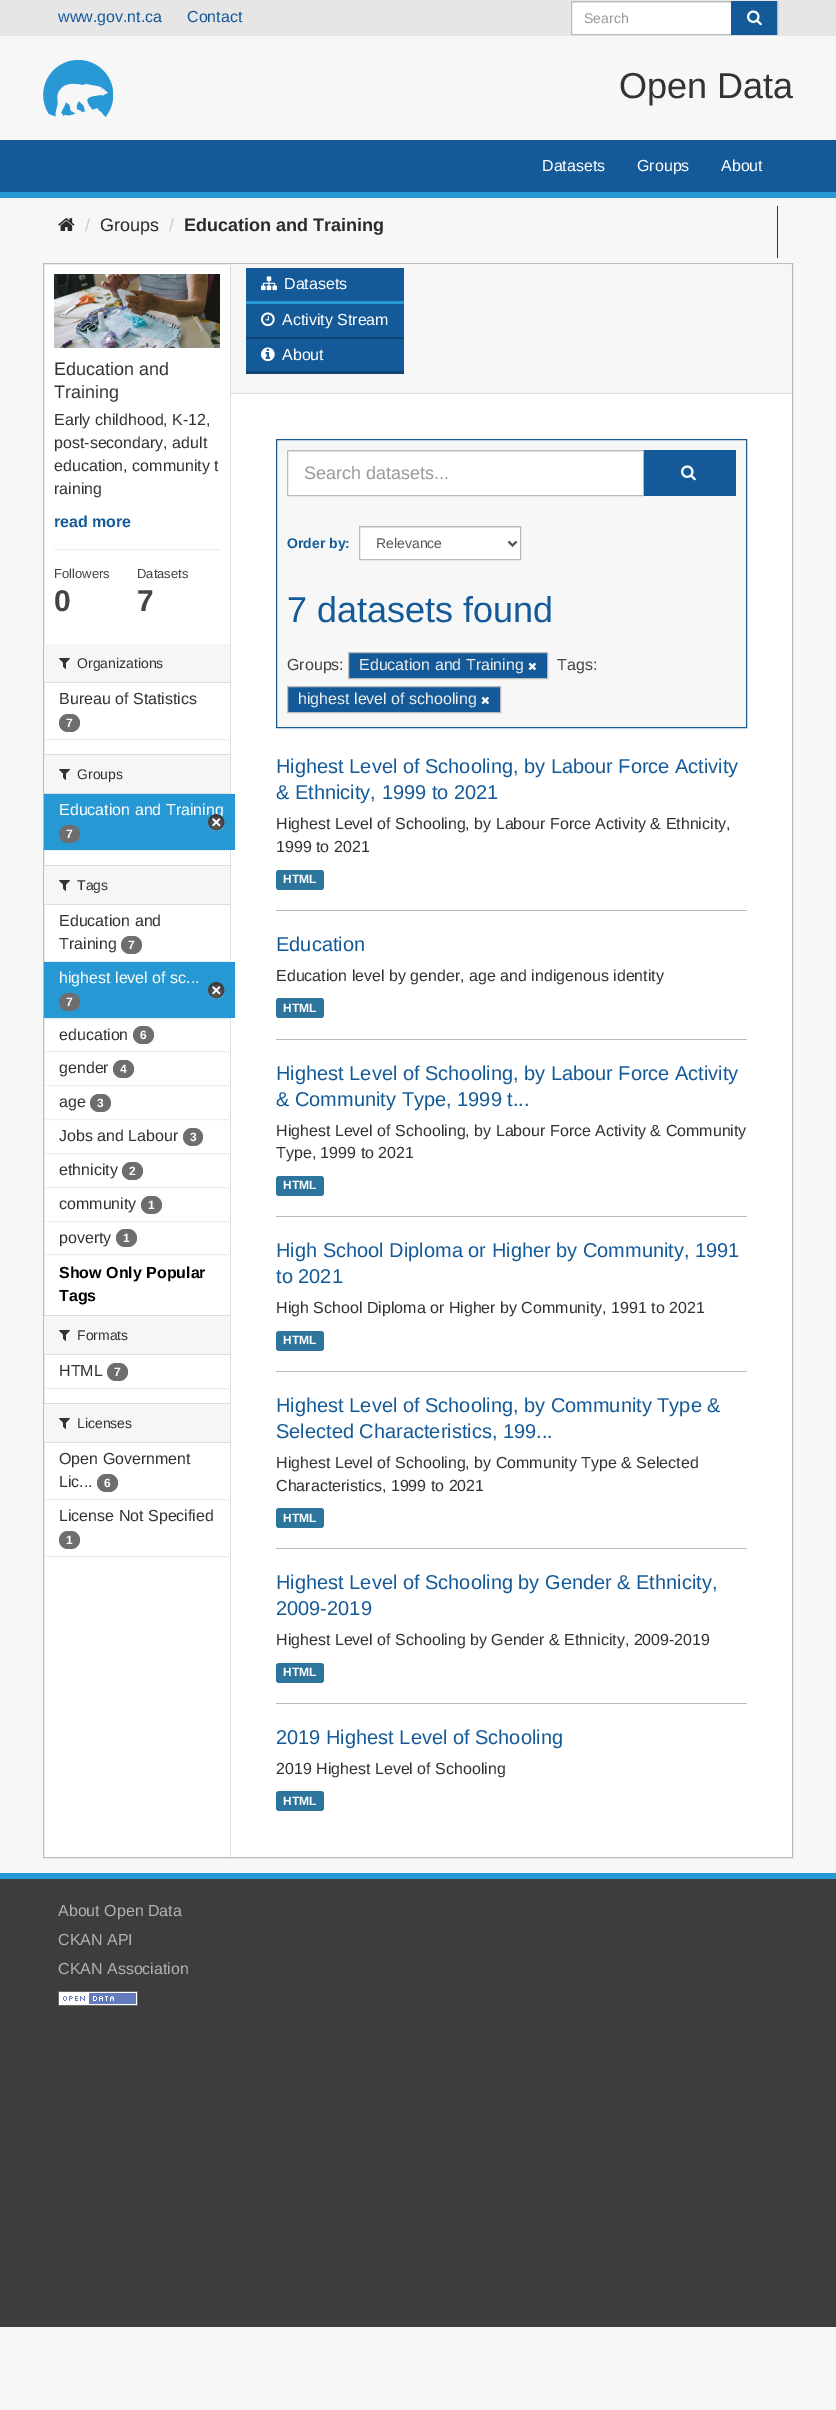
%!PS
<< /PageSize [836 2410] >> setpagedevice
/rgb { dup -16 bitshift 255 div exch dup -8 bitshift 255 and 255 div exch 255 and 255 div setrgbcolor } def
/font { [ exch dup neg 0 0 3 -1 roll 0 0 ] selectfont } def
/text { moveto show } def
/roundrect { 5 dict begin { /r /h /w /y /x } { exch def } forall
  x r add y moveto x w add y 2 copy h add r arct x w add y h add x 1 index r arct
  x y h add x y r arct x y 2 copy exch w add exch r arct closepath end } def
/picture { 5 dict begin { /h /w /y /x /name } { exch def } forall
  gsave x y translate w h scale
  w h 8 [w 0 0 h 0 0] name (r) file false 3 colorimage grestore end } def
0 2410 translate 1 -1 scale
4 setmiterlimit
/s1 { /LiberationSans-Regular 16 font 16#155A98 rgb } def
/s2 { /LiberationSans-Regular 14 font 16#999999 rgb } def
/s3 { /LiberationSans-Regular 36 font 16#333333 rgb } def
/s4 { /LiberationSans-Regular 16 font 16#FFFFFF rgb } def
/s5 { /LiberationSans-Regular 18 font 16#CCCCCC rgb } def
/s6 { /LiberationSans-Regular 18 font 16#2A2A2A rgb } def
/s7 { /LiberationSans-Bold 18 font 16#2A2A2A rgb } def
/s8 { /LiberationSans-Regular 18 font 16#333333 rgb } def
/s9 { /LiberationSans-Regular 16 font 16#333333 rgb } def
/s10 { /LiberationSans-Bold 16 font 16#155A98 rgb } def
/s11 { /LiberationSans-Regular 13 font 16#444444 rgb } def
/s12 { /LiberationSans-Bold 30 font 16#444444 rgb } def
/s13 { /LiberationSans-Regular 14 font 16#333333 rgb } def
/s14 { /LiberationSans-Bold 12 font 16#FFFFFF rgb } def
/s15 { /LiberationSans-Bold 16 font 16#000000 rgb } def
/s16 { /LiberationSans-Regular 18 font 16#999999 rgb } def
/s17 { /LiberationSans-Bold 14 font 16#155A98 rgb } def
/s18 { /LiberationSans-Regular 14 font 16#555555 rgb } def
/s19 { /LiberationSans-Regular 36 font 16#155A98 rgb } def
/s20 { /LiberationSans-Regular 16 font 16#444444 rgb } def
/s21 { /LiberationSans-Regular 16 font 16#EEEEEE rgb } def
/s22 { /LiberationSans-Regular 20 font 16#155A98 rgb } def
/s23 { /LiberationSans-Regular 16 font 16#B1B1B1 rgb } def
16#F7F7F7 rgb
0 0 836 2410 rectfill
16#E6E6E6 rgb
0 0 836 36 rectfill
s1
(www.gov.nt.ca) 58 22 text
(Contact) 187 22 text
16#FFFFFF rgb
572 3 159 31 rectfill
16#ECECEC rgb
572 2 159 1 rectfill
16#BBBBBB rgb
571.5 1.5 206 33 rectstroke
s2
(Search) 584 23 text
16#155A98 rgb
731 1 46 34 rectfill
(pic1.raw) 747 10 15 16 picture
(pic2.raw) 43 60 70 57 picture
s3
(Open Data) 619 98 text
16#155A98 rgb
0 140 836 52 rectfill
16#2699D5 rgb
0 192 836 6 rectfill
s4
(Datasets) 542 171 text
(Groups) 637 171 text
(About) 721 171 text
16#0D3B65 rgb
777 206 1 52 rectfill
(pic3.raw) 58 218 17 13 picture
s5
(/) 85 231 text
s6
(Groups) 100 231 text
s5
(/) 169 231 text
s7
(Education and Training) 184 231 text
16#FFFFFF rgb
43.5 263.5 moveto 792.5 263.5 lineto 792.5 1857.5 lineto 43.5 1857.5 lineto closepath gsave fill grestore
16#BBBBBB rgb
stroke
(pic4.raw) 54 274 166 74 picture
s8
(Education and) 54 375 text
(Training) 54 398 text
s9
(Early childhood, K-12,) 54 425 text
(post-secondary, adult) 54 448 text
(education, community t) 54 471 text
(raining) 54 494 text
s10
(read more) 54 527 text
16#DDDDDD rgb
[1 1] 0 setdash
54 549.5 moveto 220 549.5 lineto stroke
s11
(Followers) 54 578 text
s12
(0) 54 611 text
s11
(Datasets) 137 578 text
s12
(7) 137 611 text
16#F6F6F6 rgb
47 644 moveto 230 644 lineto 230 683 lineto 44 683 lineto 44 647 lineto 44 645.5 45.5 644 47 644 curveto closepath fill
16#DDDDDD rgb
44 682 186 1 rectfill
(pic5.raw) 59 658 11 11 picture
s13
(Organizations) 77 668 text
s9
(Bureau of Statistics) 59 704 text
16#6E6E6E rgb
59 714 21 18 9 roundrect fill
s14
(7) 66 727 text
16#DDDDDD rgb
44 739.5 moveto 230 739.5 lineto stroke
16#F6F6F6 rgb
44 755 186 38 rectfill
16#DDDDDD rgb
44 754 186 1 rectfill
44 793 186 1 rectfill
(pic5.raw) 59 769 11 11 picture
s13
(Groups) 77 779 text
16#DDDDDD rgb
230 264 1 1593 rectfill
16#2699D5 rgb
44 794 191 56 rectfill
s4
(Education and Training) 59 815 text
(pic6.raw) 208 814 17 17 picture
16#6E6E6E rgb
59 825 21 18 9 roundrect fill
s14
(7) 66 838 text
16#DDDDDD rgb
44 850.5 moveto 230 850.5 lineto stroke
16#F6F6F6 rgb
44 866 186 38 rectfill
16#DDDDDD rgb
44 865 186 1 rectfill
44 904 186 1 rectfill
(pic5.raw) 59 880 11 11 picture
s13
(Tags) 77 890 text
16#DDDDDD rgb
44 961.5 moveto 230 961.5 lineto stroke
s9
(Education and) 59 926 text
(Training) 59 949 text
16#6E6E6E rgb
121 936 21 18 9 roundrect fill
s14
(7) 128 949 text
16#F6F6F6 rgb
45 1018 185 1 rectfill
16#DDDDDD rgb
44 1018.5 moveto 230 1018.5 lineto stroke
16#2699D5 rgb
44 962 191 56 rectfill
s4
(highest level of sc...) 59 983 text
(pic7.raw) 208 982 17 17 picture
16#6E6E6E rgb
59 993 21 18 9 roundrect fill
s14
(7) 66 1006 text
16#DDDDDD rgb
44 1051.5 moveto 230 1051.5 lineto stroke
s9
(education) 59 1040 text
16#6E6E6E rgb
133 1026 21 18 9 roundrect fill
s14
(6) 140 1039 text
16#DDDDDD rgb
44 1085.5 moveto 230 1085.5 lineto stroke
s9
(gender) 59 1073 text
16#6E6E6E rgb
113 1060 21 18 9 roundrect fill
s14
(4) 120 1073 text
16#DDDDDD rgb
44 1119.5 moveto 230 1119.5 lineto stroke
s9
(age) 59 1107 text
16#6E6E6E rgb
90 1094 21 18 9 roundrect fill
s14
(3) 97 1107 text
16#DDDDDD rgb
44 1153.5 moveto 230 1153.5 lineto stroke
s9
(Jobs and Labour) 59 1141 text
16#6E6E6E rgb
183 1128 20 18 9 roundrect fill
s14
(3) 190 1141 text
16#DDDDDD rgb
44 1187.5 moveto 230 1187.5 lineto stroke
s9
(ethnicity) 59 1175 text
16#6E6E6E rgb
122 1162 21 18 9 roundrect fill
s14
(2) 129 1175 text
16#DDDDDD rgb
44 1221.5 moveto 230 1221.5 lineto stroke
s9
(community) 59 1209 text
16#6E6E6E rgb
141 1196 21 18 9 roundrect fill
s14
(1) 148 1209 text
s9
(poverty) 59 1243 text
16#6E6E6E rgb
116 1229 21 18 9 roundrect fill
s14
(1) 123 1242 text
16#DDDDDD rgb
44 1254.5 moveto 230 1254.5 lineto stroke
s15
(Show Only Popular) 59 1278 text
(Tags) 59 1301 text
16#F6F6F6 rgb
44 1316 186 38 rectfill
16#DDDDDD rgb
44 1315 186 1 rectfill
44 1354 186 1 rectfill
(pic5.raw) 59 1330 11 11 picture
s13
(Formats) 77 1340 text
s9
(HTML) 59 1376 text
16#6E6E6E rgb
107 1363 21 18 9 roundrect fill
s14
(7) 114 1376 text
16#DDDDDD rgb
44 1388.5 moveto 230 1388.5 lineto stroke
16#F6F6F6 rgb
44 1404 186 38 rectfill
16#DDDDDD rgb
44 1403 186 1 rectfill
44 1442 186 1 rectfill
(pic5.raw) 59 1418 11 11 picture
s13
(Licenses) 77 1428 text
16#DDDDDD rgb
44 1499.5 moveto 230 1499.5 lineto stroke
s9
(Open Government) 59 1464 text
(Lic...) 59 1487 text
16#6E6E6E rgb
97 1474 21 18 9 roundrect fill
s14
(6) 104 1487 text
s9
(License Not Specified) 59 1521 text
16#6E6E6E rgb
59 1531 21 18 9 roundrect fill
s14
(1) 66 1544 text
16#DDDDDD rgb
44 1556.5 moveto 230 1556.5 lineto stroke
16#F6F6F6 rgb
231 264 moveto 789 264 lineto 790.5 264 792 265.5 792 267 curveto 792 394 lineto 231 394 lineto closepath fill
16#DDDDDD rgb
231 393 561 1 rectfill
16#155A98 rgb
246 268 158 33 rectfill
16#2699D5 rgb
246 301 158 3 rectfill
(pic8.raw) 261 276 16 15 picture
s4
(Datasets) 284 289 text
16#155A98 rgb
246 304 158 33 rectfill
16#0F4370 rgb
246 337 158 2 rectfill
(pic9.raw) 261 312 14 15 picture
s4
(Activity Stream) 282 325 text
16#155A98 rgb
246 339 158 32 rectfill
16#0F4370 rgb
246 371 158 3 rectfill
(pic10.raw) 261 347 14 15 picture
s4
(About) 282 360 text
16#F7F7F7 rgb
276.5 439.5 moveto 746.5 439.5 lineto 746.5 727.5 lineto 276.5 727.5 lineto closepath gsave fill grestore
16#1A5B96 rgb
[] 0 setdash
stroke
16#FFFFFF rgb
288 452 355 43 rectfill
16#ECECEC rgb
288 451 355 1 rectfill
16#BBBBBB rgb
287.5 450.5 356 45 rectstroke
s16
(Search datasets...) 304 479 text
16#155A98 rgb
644 450 92 46 rectfill
(pic1.raw) 681 465 15 16 picture
s17
(Order by:) 287 548 text
16#FFFFFF rgb
360 528 160 31 rectfill
16#ECECEC rgb
360 527 160 1 rectfill
16#BBBBBB rgb
359.5 526.5 161 33 rectstroke
16#555555 rgb
2 setlinewidth
508.5 541.5 moveto 512.5 545.5 lineto 516.5 541.5 lineto stroke
s18
(Relevance) 376 548 text
s19
(7 datasets found) 287 622 text
s20
(Groups:) 287 670 text
16#155A98 rgb
348.5 652.5 moveto 547.5 652.5 lineto 547.5 678.5 lineto 348.5 678.5 lineto closepath gsave fill grestore
16#BBBBBB rgb
1 setlinewidth
stroke
s21
(Education and Training) 359 670 text
(pic11.raw) 528 662 8 9 picture
s20
(Tags:) 557 670 text
16#155A98 rgb
287.5 686.5 moveto 500.5 686.5 lineto 500.5 712.5 lineto 287.5 712.5 lineto closepath gsave fill grestore
16#BBBBBB rgb
stroke
s21
(highest level of schooling) 298 704 text
(pic11.raw) 481 696 8 9 picture
16#BBBBBB rgb
276 910 471 1 rectfill
s22
(Highest Level of Schooling, by Labour Force Activity) 276 773 text
(& Ethnicity, 1999 to 2021) 276 799 text
s9
(Highest Level of Schooling, by Labour Force Activity & Ethnicity,) 276 829 text
(1999 to 2021) 276 852 text
16#2E759E rgb
276 870 48 20 3 roundrect fill
s14
(HTML) 283 883 text
16#BBBBBB rgb
276 1039 471 1 rectfill
s22
(Education) 276 951 text
s9
(Education level by gender, age and indigenous identity) 276 981 text
16#2E759E rgb
276 998 48 20 3 roundrect fill
s14
(HTML) 283 1012 text
16#BBBBBB rgb
276 1216 471 1 rectfill
s22
(Highest Level of Schooling, by Labour Force Activity) 276 1080 text
(& Community Type, 1999 t...) 276 1106 text
s9
(Highest Level of Schooling, by Labour Force Activity & Community) 276 1136 text
(Type, 1999 to 2021) 276 1158 text
16#2E759E rgb
276 1176 48 20 3 roundrect fill
s14
(HTML) 283 1189 text
16#BBBBBB rgb
276 1371 471 1 rectfill
s22
(High School Diploma or Higher by Community, 1991) 276 1257 text
(to 2021) 276 1283 text
s9
(High School Diploma or Higher by Community, 1991 to 2021) 276 1313 text
16#2E759E rgb
276 1331 48 20 3 roundrect fill
s14
(HTML) 283 1344 text
16#BBBBBB rgb
276 1548 471 1 rectfill
s22
(Highest Level of Schooling, by Community Type &) 276 1412 text
(Selected Characteristics, 199...) 276 1438 text
s9
(Highest Level of Schooling, by Community Type & Selected) 276 1468 text
(Characteristics, 1999 to 2021) 276 1491 text
16#2E759E rgb
276 1508 48 20 3 roundrect fill
s14
(HTML) 283 1522 text
16#BBBBBB rgb
276 1703 471 1 rectfill
s22
(Highest Level of Schooling by Gender & Ethnicity,) 276 1589 text
(2009-2019) 276 1615 text
s9
(Highest Level of Schooling by Gender & Ethnicity, 2009-2019) 276 1645 text
16#2E759E rgb
276 1663 48 20 3 roundrect fill
s14
(HTML) 283 1676 text
s22
(2019 Highest Level of Schooling) 276 1744 text
s9
(2019 Highest Level of Schooling) 276 1774 text
16#2E759E rgb
276 1791 48 20 3 roundrect fill
s14
(HTML) 283 1805 text
16#3D3D3D rgb
0 1879 836 448 rectfill
16#2699D5 rgb
0 1873 836 6 rectfill
s23
(About Open Data) 58 1916 text
(CKAN API) 58 1945 text
(CKAN Association) 58 1974 text
(pic12.raw) 58 1991 80 15 picture
showpage
